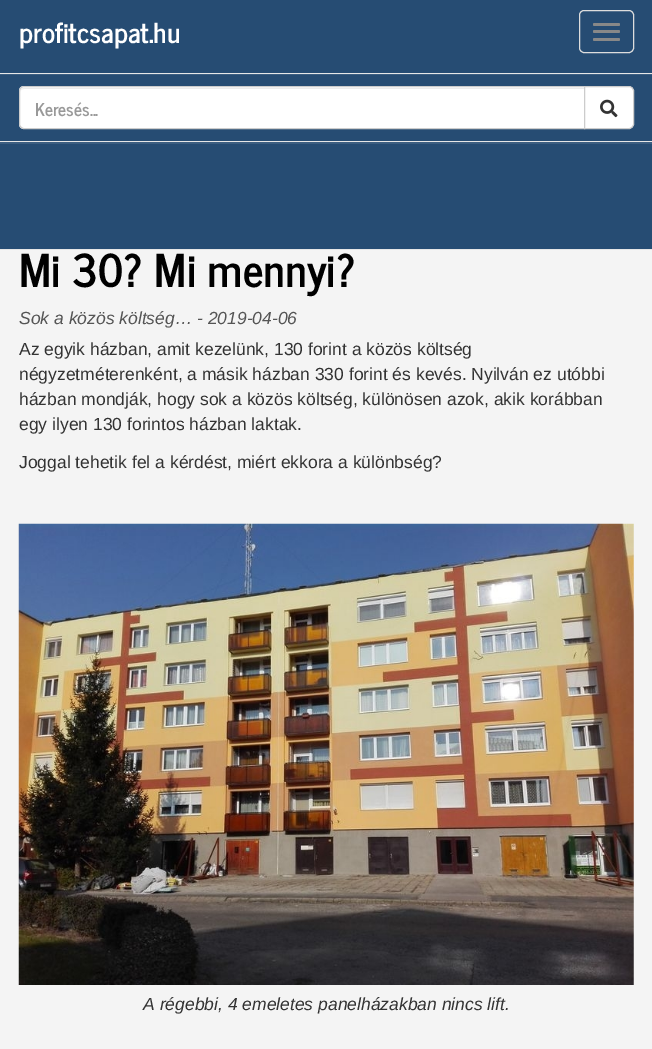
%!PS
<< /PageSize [652 1049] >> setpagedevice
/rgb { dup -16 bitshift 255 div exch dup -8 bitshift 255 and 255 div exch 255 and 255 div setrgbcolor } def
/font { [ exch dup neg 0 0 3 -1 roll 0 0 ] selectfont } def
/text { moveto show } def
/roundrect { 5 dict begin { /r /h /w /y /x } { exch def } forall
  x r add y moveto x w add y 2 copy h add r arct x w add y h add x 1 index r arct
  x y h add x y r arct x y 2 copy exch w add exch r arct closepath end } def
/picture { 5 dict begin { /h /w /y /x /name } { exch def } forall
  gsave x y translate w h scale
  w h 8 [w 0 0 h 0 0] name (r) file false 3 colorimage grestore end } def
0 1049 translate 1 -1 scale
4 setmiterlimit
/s1 { /NewsCycle-Bold 27.5 font 16#FFFFFF rgb } def
/s2 { /NewsCycle-Bold 17.5 font 16#999999 rgb } def
/s3 { /NewsCycle-Bold 45 font 16#000000 rgb } def
/s4 { /LiberationSans-Italic 17.5 font 16#555555 rgb } def
/s5 { /LiberationSans-Regular 17.5 font 16#333333 rgb } def
/s6 { /LiberationSans-Italic 17.5 font 16#333333 rgb } def
16#F4F4F4 rgb
0 0 652 1049 rectfill
16#264C73 rgb
0 0 652 249 rectfill
16#E7E7E7 rgb
0 249 652 1 rectfill
s1
(profitcsapat.hu) 19 43 text
16#DDDDDD rgb
579.5 10.5 54 42 4.5 roundrect stroke
16#888888 rgb
593 23 27 3 1.5 roundrect fill
593 30 27 3 1.5 roundrect fill
593 38 27 3 1.5 roundrect fill
16#3C5E81 rgb
0 142 moveto 0 144 lineto 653 144 lineto 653 74 lineto 652 74 lineto 652 142 lineto closepath fill
0 74 652 1 rectfill
16#E7E7E7 rgb
0 73 652 1 rectfill
0 141 652 1 rectfill
16#FFFFFF rgb
24 86 moveto 585 86 lineto 585 129 lineto 24 129 lineto 21 129 19 127 19 124 curveto 19 91 lineto 19 88 21 86 24 86 curveto closepath fill
16#ECECEC rgb
24 89 moveto 584 89 lineto 584 88 lineto 24 88 lineto 22 88 20 90 20 92 curveto 20 90 22 89 24 89 curveto closepath fill
16#CCCCCC rgb
24 86.5 moveto 584.5 86.5 lineto 584.5 128.5 lineto 24 128.5 lineto 21.5 128.5 19.5 126.5 19.5 124 curveto 19.5 91 lineto 19.5 88.5 21.5 86.5 24 86.5 curveto closepath stroke
s2
(Keresés...) 35 116 text
16#FFFFFF rgb
584.5 86.5 moveto 629 86.5 lineto 631.5 86.5 633.5 88.5 633.5 91 curveto 633.5 124 lineto 633.5 126.5 631.5 128.5 629 128.5 curveto 584.5 128.5 lineto closepath gsave fill grestore
16#CCCCCC rgb
stroke
(pic1.raw) 600 99 18 19 picture
s3
(Mi 30? Mi mennyi?) 19 287 text
s4
(Sok a közös költség… - 2019-04-06) 19 324 text
s5
(Az egyik házban, amit kezelünk, 130 forint a közös költség) 19 355 text
(négyzetméterenként, a másik házban 330 forint és kevés. Nyilván ez utóbbi) 19 380 text
(házban mondják, hogy sok a közös költség, különösen azok, akik korábban) 19 405 text
(egy ilyen 130 forintos házban laktak.) 19 430 text
(Joggal tehetik fel a kérdést, miért ekkora a különbség?) 19 468 text
(pic2.raw) 18 523 616 462 picture
s6
(A régebbi, 4 emeletes panelházakban nincs lift.) 143 1010 text
showpage
